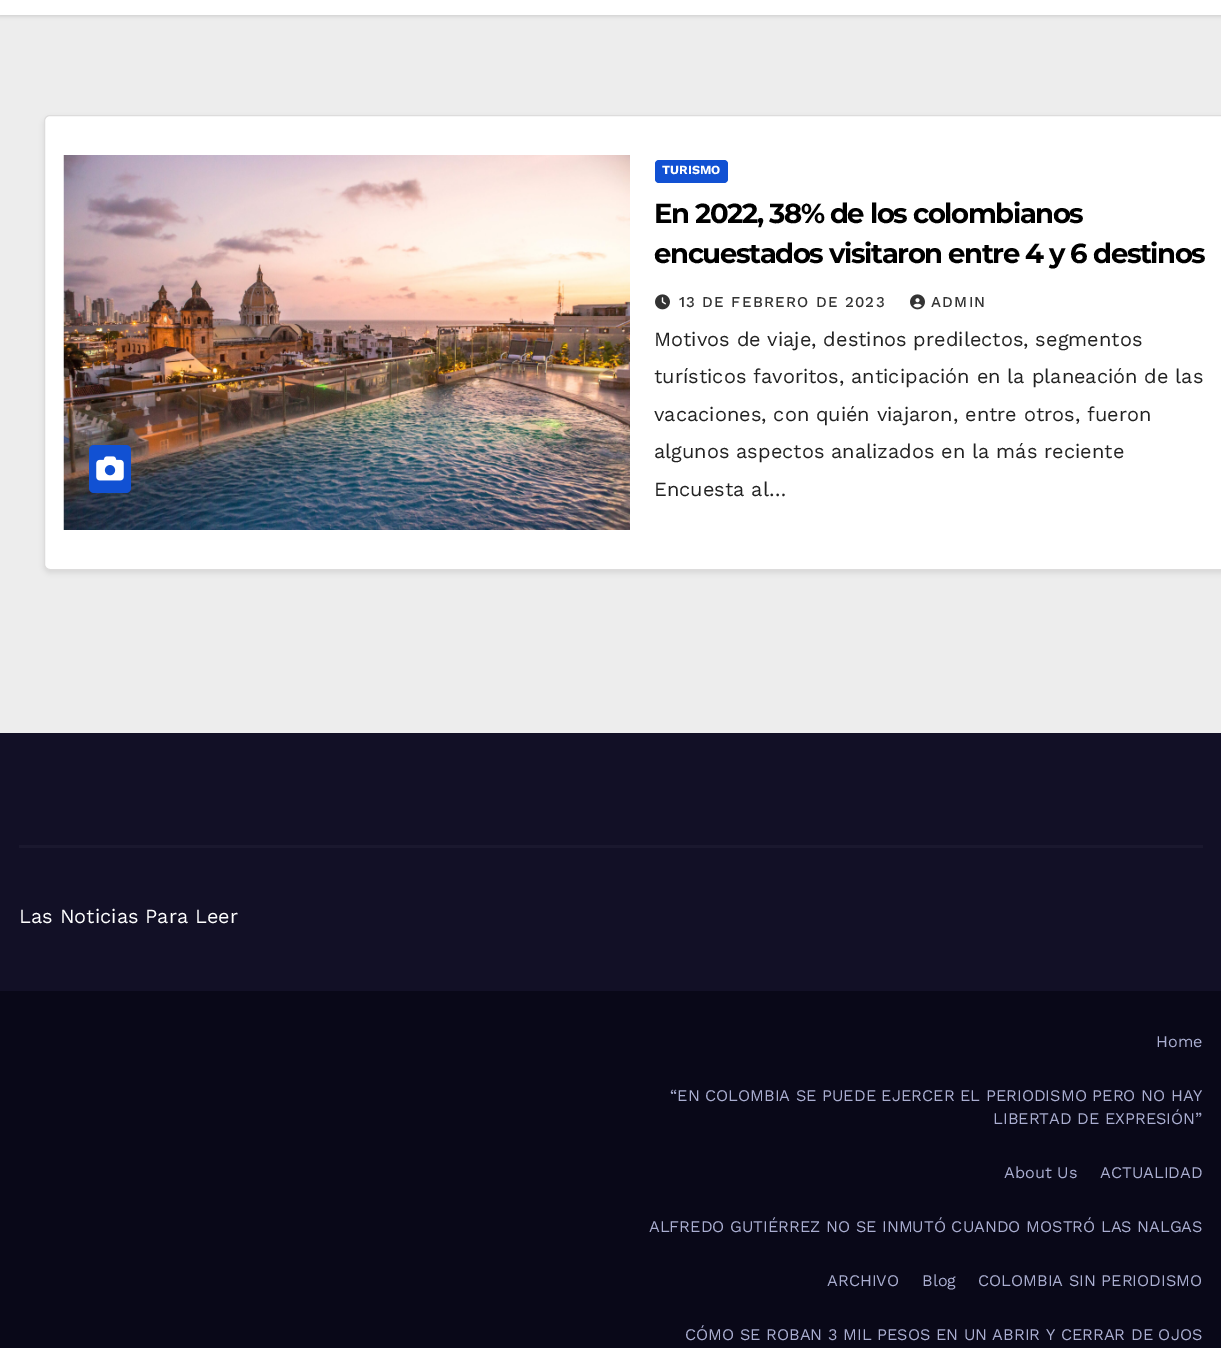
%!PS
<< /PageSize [1221 1348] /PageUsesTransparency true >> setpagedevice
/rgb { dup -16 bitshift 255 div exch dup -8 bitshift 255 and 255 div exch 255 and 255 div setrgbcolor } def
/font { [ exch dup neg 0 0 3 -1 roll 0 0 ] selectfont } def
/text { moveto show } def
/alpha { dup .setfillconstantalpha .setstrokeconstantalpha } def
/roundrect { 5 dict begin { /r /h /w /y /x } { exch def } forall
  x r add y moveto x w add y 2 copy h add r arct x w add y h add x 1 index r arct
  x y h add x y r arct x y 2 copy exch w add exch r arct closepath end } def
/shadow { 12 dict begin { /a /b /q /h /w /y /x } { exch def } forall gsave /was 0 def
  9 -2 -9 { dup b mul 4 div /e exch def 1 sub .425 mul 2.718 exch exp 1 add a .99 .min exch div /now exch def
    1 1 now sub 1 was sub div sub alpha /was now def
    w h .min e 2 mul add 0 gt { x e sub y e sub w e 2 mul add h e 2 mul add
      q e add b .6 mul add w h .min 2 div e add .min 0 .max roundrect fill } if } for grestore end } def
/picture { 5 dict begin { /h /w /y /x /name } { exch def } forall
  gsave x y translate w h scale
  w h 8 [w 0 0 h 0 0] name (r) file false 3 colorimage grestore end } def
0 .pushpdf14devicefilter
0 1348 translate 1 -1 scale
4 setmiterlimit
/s1 { /WorkSans-Bold 12.5 font 16#FFFFFF rgb } def
/s2 { /WorkSans-Regular 20 font 16#222222 rgb } def
/s3 { /WorkSans-Regular 20 font 16#FFFFFF rgb } def
/s4 { /WorkSans-Regular 16.25 font 16#AAAED1 rgb } def
16#EDEDED rgb
0 0 1221 1348 rectfill
16#000000 rgb
0 -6 1221 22 0 2 0.15 shadow
16#FFFFFF rgb
0 0 1221 15 rectfill
16#000000 rgb
44 118 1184 455 6 2.5 0.08 shadow
16#FFFFFF rgb
44.5 115.5 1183 454 5.5 roundrect gsave fill grestore
16#DDDCDC rgb
stroke
(pic1.raw) 63 155 567 375 picture
16#1151D3 rgb
89 445 42 48 5 roundrect fill
(pic2.raw) 96 456 28 25 picture
655 160 73 23 4 roundrect fill
s1
(TURISMO) 662 174 text
/Montserrat-Bold 27.5 font
16#000000 rgb
654 223 moveto -1.4 0 (En 2022, 38% de los colombianos) ashow
654 263 moveto -1.4 0 (encuestados visitaron entre 4 y 6 destinos) ashow
(pic3.raw) 655 294 15 16 picture
/WorkSans-Medium 15 font
16#333333 rgb
679 307 moveto 1.25 0 (13 DE FEBRERO DE 2023) ashow
(pic4.raw) 910 294 15 16 picture
931 307 moveto 1.25 0 (ADMIN) ashow
s2
(Motivos de viaje, destinos predilectos, segmentos) 654 346 text
(turísticos favoritos, anticipación en la planeación de las) 654 383 text
(vacaciones, con quién viajaron, entre otros, fueron) 654 421 text
(algunos aspectos analizados en la más reciente) 654 458 text
(Encuesta al…) 654 496 text
16#121026 rgb
0 733 1221 258 rectfill
16#1A182E rgb
19 845 1184 3 rectfill
s3
(Las Noticias Para Leer) 19 923 text
16#090818 rgb
0 991 1221 357 rectfill
s4
(Home) 1156 1047 text
(“EN COLOMBIA SE PUEDE EJERCER EL PERIODISMO PERO NO HAY) 670 1101 text
(LIBERTAD DE EXPRESIÓN”) 993 1124 text
(About Us) 1004 1178 text
(ACTUALIDAD) 1100 1178 text
(ALFREDO GUTIÉRREZ NO SE INMUTÓ CUANDO MOSTRÓ LAS NALGAS) 649 1232 text
(ARCHIVO) 827 1286 text
(Blog) 922 1286 text
(COLOMBIA SIN PERIODISMO) 978 1286 text
(CÓMO SE ROBAN 3 MIL PESOS EN UN ABRIR Y CERRAR DE OJOS) 685 1340 text
.poppdf14devicefilter showpage
